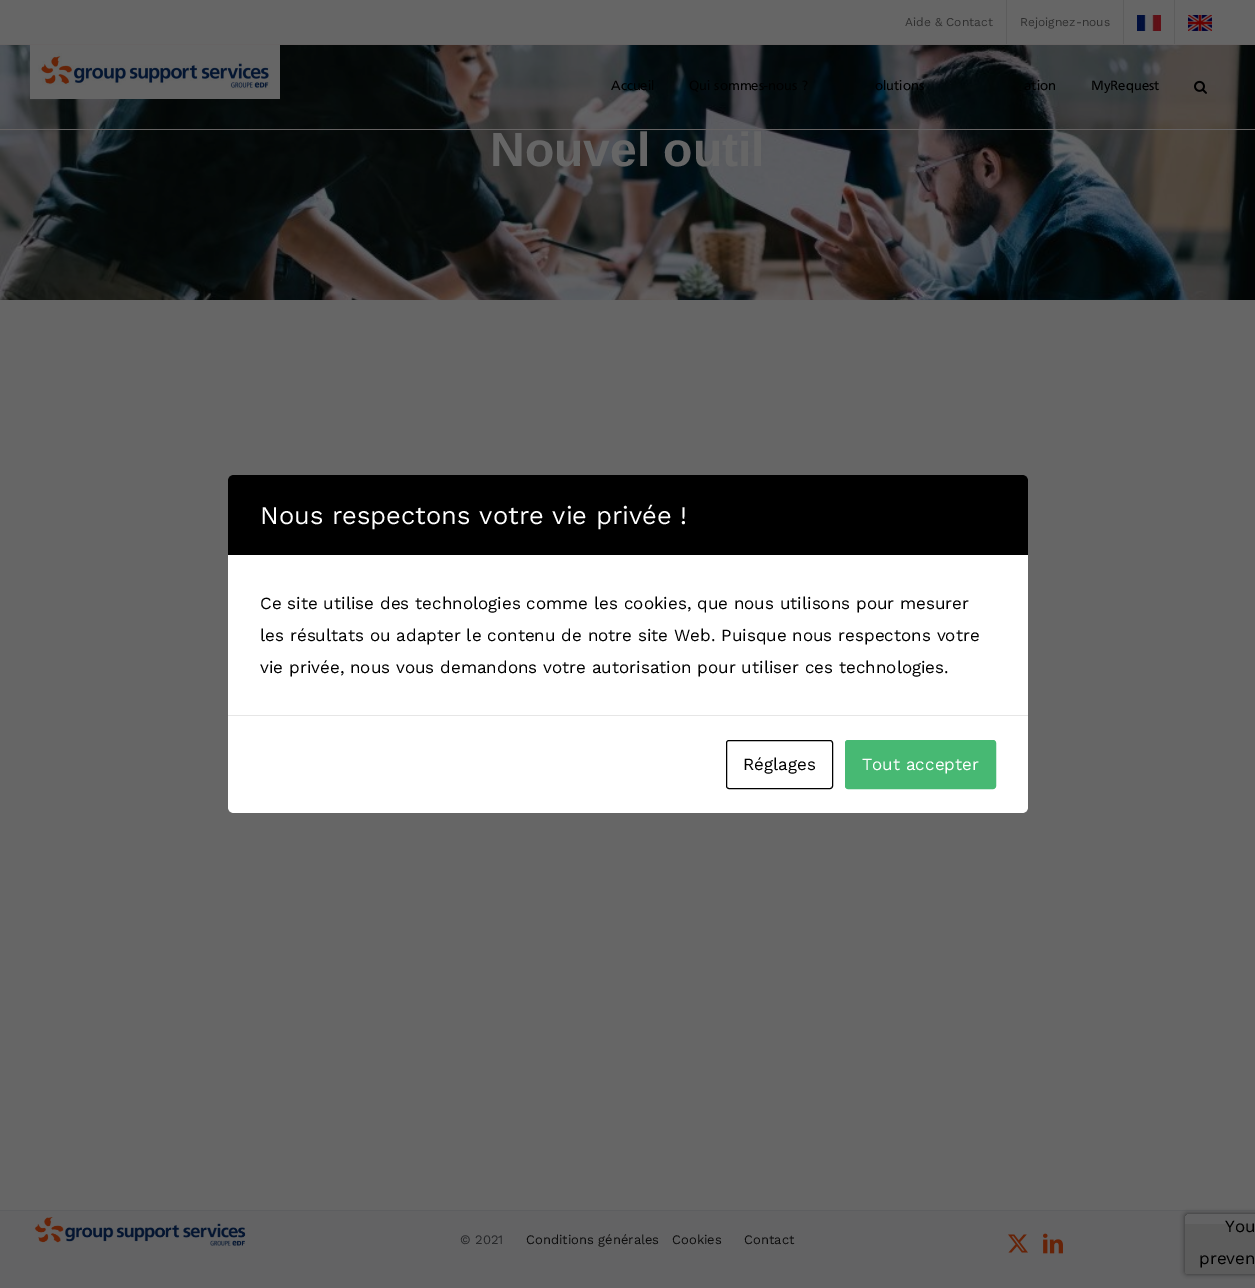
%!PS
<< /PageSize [1255 1288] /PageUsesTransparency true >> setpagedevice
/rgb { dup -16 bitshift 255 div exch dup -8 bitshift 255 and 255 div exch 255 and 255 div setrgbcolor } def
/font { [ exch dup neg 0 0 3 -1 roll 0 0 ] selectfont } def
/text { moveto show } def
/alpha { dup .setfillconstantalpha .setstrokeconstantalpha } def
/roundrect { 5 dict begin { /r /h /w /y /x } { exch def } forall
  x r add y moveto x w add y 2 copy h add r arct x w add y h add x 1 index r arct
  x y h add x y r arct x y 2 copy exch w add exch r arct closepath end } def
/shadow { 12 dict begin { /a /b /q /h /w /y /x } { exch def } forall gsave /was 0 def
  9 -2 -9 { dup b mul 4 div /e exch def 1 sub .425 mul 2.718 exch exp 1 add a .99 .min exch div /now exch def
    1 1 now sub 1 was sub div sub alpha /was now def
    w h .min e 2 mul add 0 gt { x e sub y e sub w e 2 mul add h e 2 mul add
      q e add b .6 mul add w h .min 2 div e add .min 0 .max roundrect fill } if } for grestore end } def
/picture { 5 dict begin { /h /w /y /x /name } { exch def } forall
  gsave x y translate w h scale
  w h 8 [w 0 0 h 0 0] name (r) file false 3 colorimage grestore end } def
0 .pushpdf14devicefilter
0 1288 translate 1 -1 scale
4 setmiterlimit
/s1 { /WorkSans-Regular 12 font 16#2E2E2E rgb } def
/s2 { /Frutiger-Regular 14 font 16#000000 rgb } def
/s3 { /LiberationSans-Bold 48 font 16#666666 rgb } def
/s4 { /WorkSans-Regular 13 font 16#252628 rgb } def
/s5 { /WorkSans-Regular 13 font 16#0D0D0D rgb } def
/s6 { /WorkSans-Regular 25.5 font 16#FFFFFF rgb } def
/s7 { /WorkSans-Regular 17 font 16#000000 rgb } def
/s8 { /WorkSans-Regular 17 font 16#FFFFFF rgb } def
16#666666 rgb
0 0 1255 1288 rectfill
16#666363 rgb
0 44 1255 1 rectfill
s1
(Aide & Contact) 905 26 text
16#5C5C5C rgb
1006 0 1 44 rectfill
s1
(Rejoignez-nous) 1020 26 text
16#5C5C5C rgb
1123 0 1 44 rectfill
(pic1.raw) 1137 15 24 16 picture
1174 0 1 44 rectfill
(pic2.raw) 1188 15 24 16 picture
(pic5.raw) 0 45 1255 255 picture
16#666363 rgb
0 129 1255 1 rectfill
(pic3.raw) 30 45 250 54 picture
s2
(Accueil) 611 90 text
(Qui sommes-nous ?) 689 90 text
(olutions) 875 90 text
(ation) 1024 90 text
(MyRequest) 1091 90 text
(pic4.raw) 1194 80 13 14 picture
s3
(Nouvel outil) 490 166 text
16#636364 rgb
0 1211 1255 77 rectfill
16#5D5E60 rgb
0 1210 1255 1 rectfill
(pic6.raw) 34 1217 212 29 picture
s4
(© 2021) 460 1244 text
s5
(Conditions générales) 526 1244 text
(Cookies) 672 1244 text
(Contact) 744 1244 text
(pic7.raw) 1008 1234 20 19 picture
(pic8.raw) 1043 1233 20 21 picture
16#000000 rgb
234 475 moveto 1022 475 lineto 1025.5 475 1028 477.5 1028 481 curveto 1028 555 lineto 228 555 lineto 228 481 lineto 228 477.5 230.5 475 234 475 curveto closepath fill
s6
(Nous respectons votre vie privée !) 260 524 text
228 555 800 160 rectfill
s7
(Ce site utilise des technologies comme les cookies, que nous utilisons pour mesurer) 260 609 text
(les résultats ou adapter le contenu de notre site Web. Puisque nous respectons votre) 260 641 text
(vie privée, nous vous demandons votre autorisation pour utiliser ces technologies.) 260 673 text
16#FFFFFF rgb
228 715 moveto 1028 715 lineto 1028 807 lineto 1028 810.5 1025.5 813 1022 813 curveto 234 813 lineto 230.5 813 228 810.5 228 807 curveto closepath fill
16#E6E6E6 rgb
228 715 800 1 rectfill
16#000000 rgb
726.5 740.5 106 48 2.5 roundrect stroke
(Réglages) 743 770 text
16#47B973 rgb
845.5 740.5 150 48 2.5 roundrect gsave fill grestore
stroke
s8
(Tout accepter) 862 770 text
gsave
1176 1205 moveto 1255 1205 lineto 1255 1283 lineto 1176 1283 lineto closepath 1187 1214 moveto 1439 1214 lineto 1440 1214 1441 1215 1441 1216 curveto 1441 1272 lineto 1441 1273 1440 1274 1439 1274 curveto 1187 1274 lineto 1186 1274 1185 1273 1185 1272 curveto 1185 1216 lineto 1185 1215 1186 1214 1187 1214 curveto closepath eoclip newpath
16#333333 rgb
1185 1214 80 60 2 2.5 1 shadow
grestore
16#5C5C5C rgb
1185 1224 moveto 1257 1224 lineto 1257 1272 lineto 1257 1273 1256 1274 1255 1274 curveto 1187 1274 lineto 1186 1274 1185 1273 1185 1272 curveto closepath fill
s7
(You) 1225 1232 text
(preven) 1199 1264 text
.poppdf14devicefilter showpage
